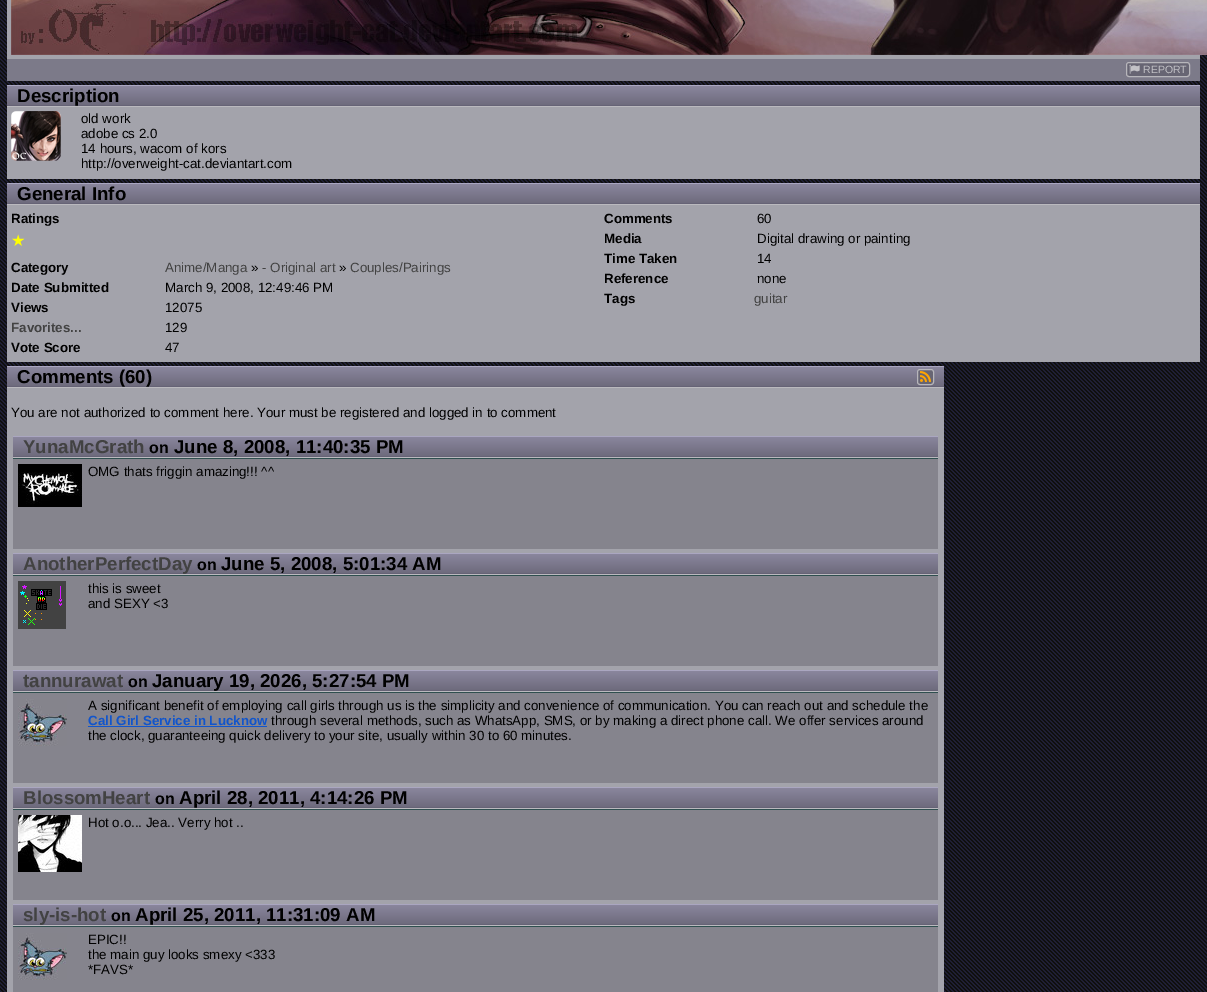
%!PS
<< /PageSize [1207 992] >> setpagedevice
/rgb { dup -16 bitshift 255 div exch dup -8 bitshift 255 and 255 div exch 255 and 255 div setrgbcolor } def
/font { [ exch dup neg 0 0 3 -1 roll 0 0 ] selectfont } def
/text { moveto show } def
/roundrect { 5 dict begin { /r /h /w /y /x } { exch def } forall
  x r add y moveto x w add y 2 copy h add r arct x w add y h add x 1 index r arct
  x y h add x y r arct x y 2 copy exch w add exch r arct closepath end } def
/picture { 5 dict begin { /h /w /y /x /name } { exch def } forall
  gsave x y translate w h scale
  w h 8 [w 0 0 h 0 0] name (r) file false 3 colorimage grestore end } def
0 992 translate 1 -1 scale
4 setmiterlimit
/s1 { /LiberationSans-Regular 10.5 font 16#C2C1C6 rgb } def
/s2 { /LiberationSans-Bold 18.7 font 16#000000 rgb } def
/s3 { /LiberationSans-Regular 13.33 font 16#000000 rgb } def
/s4 { /LiberationSans-Bold 13.33 font 16#000000 rgb } def
/s5 { /DejaVuSans-Regular 16 font 16#FFFF00 rgb } def
/s6 { /LiberationSans-Regular 13.33 font 16#424242 rgb } def
/s7 { /LiberationSans-Bold 13.33 font 16#424242 rgb } def
/s8 { /LiberationSans-Bold 18.7 font 16#424242 rgb } def
/s9 { /LiberationSans-Bold 16 font 16#000000 rgb } def
/s10 { /LiberationSans-Bold 13.33 font 16#1155CC rgb } def
16#FFFFFF rgb
0 0 1207 992 rectfill
(pic1.raw) 0 0 1207 992 picture
16#A3A3AB rgb
7 0 1193 59 rectfill
(pic2.raw) 11 0 1196 55 picture
16#7C7A89 rgb
7 59 1193 22 rectfill
16#676573 rgb
1126.5 62.5 63 14 2.5 roundrect gsave fill grestore
16#B7B6BB rgb
stroke
(pic3.raw) 1129 64 11 10 picture
s1
(REPORT) 1143 73 text
gsave 7 86 moveto 1200 86 lineto 1200 105 lineto 7 105 lineto closepath clip newpath
<< /ShadingType 2 /ColorSpace /DeviceRGB /Coords [604 85 604 107] /Extend [true true] /Function << /FunctionType 3 /Domain [0 1] /Functions [<< /FunctionType 2 /Domain [0 1] /C0 [0.545 0.529 0.62] /C1 [0.545 0.529 0.62] /N 1 >> << /FunctionType 2 /Domain [0 1] /C0 [0.545 0.529 0.62] /C1 [0.42 0.408 0.475] /N 1 >>] /Bounds [0.01] /Encode [0 1 0 1] >> >> shfill grestore
16#AAA6C0 rgb
7 85 1193 1 rectfill
16#666376 rgb
7 105 1193 1 rectfill
16#BAB9BE rgb
7 106 1193 1 rectfill
s2
(Description) 17 102 text
16#A3A3AB rgb
7 107 1193 72 rectfill
(pic4.raw) 11 111 50 50 picture
s3
(old work) 81 123 text
(adobe cs 2.0) 81 138 text
(14 hours, wacom of kors) 81 153 text
(http://overweight-cat.deviantart.com) 81 168 text
gsave 7 184 moveto 1200 184 lineto 1200 203 lineto 7 203 lineto closepath clip newpath
<< /ShadingType 2 /ColorSpace /DeviceRGB /Coords [604 183 604 205] /Extend [true true] /Function << /FunctionType 3 /Domain [0 1] /Functions [<< /FunctionType 2 /Domain [0 1] /C0 [0.545 0.529 0.62] /C1 [0.545 0.529 0.62] /N 1 >> << /FunctionType 2 /Domain [0 1] /C0 [0.545 0.529 0.62] /C1 [0.42 0.408 0.475] /N 1 >>] /Bounds [0.01] /Encode [0 1 0 1] >> >> shfill grestore
16#AAA6C0 rgb
7 183 1193 1 rectfill
16#666376 rgb
7 203 1193 1 rectfill
16#BAB9BE rgb
7 204 1193 1 rectfill
s2
(General Info) 17 200 text
16#A3A3AB rgb
7 205 1193 157 rectfill
s4
(Ratings) 11 223 text
s5
(★) 11 246 text
s4
(Category) 11 272 text
s6
(Anime/Manga) 165 272 text
s3
(») 251 272 text
s6
(- Original art) 262 272 text
s3
(») 339 272 text
s6
(Couples/Pairings) 350 272 text
s4
(Date Submitted) 11 292 text
s3
(March 9, 2008, 12:49:46 PM) 165 292 text
s4
(Views) 11 312 text
s3
(12075) 165 312 text
s7
(Favorites...) 11 332 text
s3
(129) 165 332 text
s4
(Vote Score) 11 352 text
s3
(47) 165 352 text
s4
(Comments) 604 223 text
s3
(60) 757 223 text
s4
(Media) 604 243 text
s3
(Digital drawing or painting) 757 243 text
s4
(Time Taken) 604 263 text
s3
(14) 757 263 text
s4
(Reference) 604 283 text
s3
(none) 757 283 text
s4
(Tags) 604 303 text
s6
(guitar) 754 303 text
gsave 7 367 moveto 944 367 lineto 944 386 lineto 7 386 lineto closepath clip newpath
<< /ShadingType 2 /ColorSpace /DeviceRGB /Coords [476 366 476 388] /Extend [true true] /Function << /FunctionType 3 /Domain [0 1] /Functions [<< /FunctionType 2 /Domain [0 1] /C0 [0.545 0.529 0.62] /C1 [0.545 0.529 0.62] /N 1 >> << /FunctionType 2 /Domain [0 1] /C0 [0.545 0.529 0.62] /C1 [0.42 0.408 0.475] /N 1 >>] /Bounds [0.01] /Encode [0 1 0 1] >> >> shfill grestore
16#AAA6C0 rgb
7 366 937 1 rectfill
16#666376 rgb
7 386 937 1 rectfill
16#BAB9BE rgb
7 387 937 1 rectfill
s2
(Comments \(60\)) 17 383 text
16#676573 rgb
917.5 369.5 16 15 2.5 roundrect gsave fill grestore
16#B7B6BB rgb
stroke
(pic5.raw) 920 371 11 11 picture
16#A3A3AB rgb
7 388 937 604 rectfill
s3
(You are not authorized to comment here. Your must be registered and logged in to comment) 11 417 text
gsave 13 437 moveto 938 437 lineto 938 456 lineto 13 456 lineto closepath clip newpath
<< /ShadingType 2 /ColorSpace /DeviceRGB /Coords [476 436 476 458] /Extend [true true] /Function << /FunctionType 3 /Domain [0 1] /Functions [<< /FunctionType 2 /Domain [0 1] /C0 [0.545 0.529 0.62] /C1 [0.545 0.529 0.62] /N 1 >> << /FunctionType 2 /Domain [0 1] /C0 [0.545 0.529 0.62] /C1 [0.42 0.408 0.475] /N 1 >>] /Bounds [0.01] /Encode [0 1 0 1] >> >> shfill grestore
16#AAA6C0 rgb
13 436 925 1 rectfill
16#666376 rgb
13 456 925 1 rectfill
16#BAB9BE rgb
13 457 925 1 rectfill
s8
(YunaMcGrath) 23 453 text
s9
(on) 149 453 text
s2
(June 8, 2008, 11:40:35 PM) 174 453 text
16#85848D rgb
13 459 925 90 rectfill
16#2F4F4F rgb
13 458 925 1 rectfill
(pic6.raw) 18 464 64 43 picture
s3
(OMG thats friggin amazing!!! ^^) 88 476 text
gsave 13 554 moveto 938 554 lineto 938 573 lineto 13 573 lineto closepath clip newpath
<< /ShadingType 2 /ColorSpace /DeviceRGB /Coords [476 553 476 575] /Extend [true true] /Function << /FunctionType 3 /Domain [0 1] /Functions [<< /FunctionType 2 /Domain [0 1] /C0 [0.545 0.529 0.62] /C1 [0.545 0.529 0.62] /N 1 >> << /FunctionType 2 /Domain [0 1] /C0 [0.545 0.529 0.62] /C1 [0.42 0.408 0.475] /N 1 >>] /Bounds [0.01] /Encode [0 1 0 1] >> >> shfill grestore
16#AAA6C0 rgb
13 553 925 1 rectfill
16#666376 rgb
13 573 925 1 rectfill
16#BAB9BE rgb
13 574 925 1 rectfill
s8
(AnotherPerfectDay) 23 570 text
s9
(on) 197 570 text
s2
(June 5, 2008, 5:01:34 AM) 221 570 text
16#85848D rgb
13 576 925 90 rectfill
16#2F4F4F rgb
13 575 925 1 rectfill
(pic7.raw) 18 581 48 48 picture
s3
(this is sweet) 88 593 text
(and SEXY <3) 88 608 text
gsave 13 671 moveto 938 671 lineto 938 690 lineto 13 690 lineto closepath clip newpath
<< /ShadingType 2 /ColorSpace /DeviceRGB /Coords [476 670 476 692] /Extend [true true] /Function << /FunctionType 3 /Domain [0 1] /Functions [<< /FunctionType 2 /Domain [0 1] /C0 [0.545 0.529 0.62] /C1 [0.545 0.529 0.62] /N 1 >> << /FunctionType 2 /Domain [0 1] /C0 [0.545 0.529 0.62] /C1 [0.42 0.408 0.475] /N 1 >>] /Bounds [0.01] /Encode [0 1 0 1] >> >> shfill grestore
16#AAA6C0 rgb
13 670 925 1 rectfill
16#666376 rgb
13 690 925 1 rectfill
16#BAB9BE rgb
13 691 925 1 rectfill
s8
(tannurawat) 23 687 text
s9
(on) 128 687 text
s2
(January 19, 2026, 5:27:54 PM) 152 687 text
16#85848D rgb
13 693 925 90 rectfill
16#2F4F4F rgb
13 692 925 1 rectfill
(pic8.raw) 18 699 49 47 picture
s3
(A significant benefit of employing call girls through us is the simplicity and convenience of communication. You can reach out and schedule the) 88 710 text
s10
(Call Girl Service in Lucknow) 88 725 text
88 726 179 1 rectfill
s3
(through several methods, such as WhatsApp, SMS, or by making a direct phone call. We offer services around) 271 725 text
(the clock, guaranteeing quick delivery to your site, usually within 30 to 60 minutes.) 88 740 text
gsave 13 788 moveto 938 788 lineto 938 807 lineto 13 807 lineto closepath clip newpath
<< /ShadingType 2 /ColorSpace /DeviceRGB /Coords [476 787 476 809] /Extend [true true] /Function << /FunctionType 3 /Domain [0 1] /Functions [<< /FunctionType 2 /Domain [0 1] /C0 [0.545 0.529 0.62] /C1 [0.545 0.529 0.62] /N 1 >> << /FunctionType 2 /Domain [0 1] /C0 [0.545 0.529 0.62] /C1 [0.42 0.408 0.475] /N 1 >>] /Bounds [0.01] /Encode [0 1 0 1] >> >> shfill grestore
16#AAA6C0 rgb
13 787 925 1 rectfill
16#666376 rgb
13 807 925 1 rectfill
16#BAB9BE rgb
13 808 925 1 rectfill
s8
(BlossomHeart) 23 804 text
s9
(on) 155 804 text
s2
(April 28, 2011, 4:14:26 PM) 179 804 text
16#85848D rgb
13 810 925 90 rectfill
16#2F4F4F rgb
13 809 925 1 rectfill
(pic9.raw) 18 815 64 57 picture
s3
(Hot o.o... Jea.. Verry hot ..) 88 827 text
gsave 13 905 moveto 938 905 lineto 938 924 lineto 13 924 lineto closepath clip newpath
<< /ShadingType 2 /ColorSpace /DeviceRGB /Coords [476 904 476 926] /Extend [true true] /Function << /FunctionType 3 /Domain [0 1] /Functions [<< /FunctionType 2 /Domain [0 1] /C0 [0.545 0.529 0.62] /C1 [0.545 0.529 0.62] /N 1 >> << /FunctionType 2 /Domain [0 1] /C0 [0.545 0.529 0.62] /C1 [0.42 0.408 0.475] /N 1 >>] /Bounds [0.01] /Encode [0 1 0 1] >> >> shfill grestore
16#AAA6C0 rgb
13 904 925 1 rectfill
16#666376 rgb
13 924 925 1 rectfill
16#BAB9BE rgb
13 925 925 1 rectfill
s8
(sly-is-hot) 23 921 text
s9
(on) 111 921 text
s2
(April 25, 2011, 11:31:09 AM) 135 921 text
16#85848D rgb
13 927 925 65 rectfill
16#2F4F4F rgb
13 926 925 1 rectfill
(pic8.raw) 18 933 49 47 picture
s3
(EPIC!!) 88 944 text
(the main guy looks smexy <333) 88 959 text
(*FAVS*) 88 974 text
showpage
